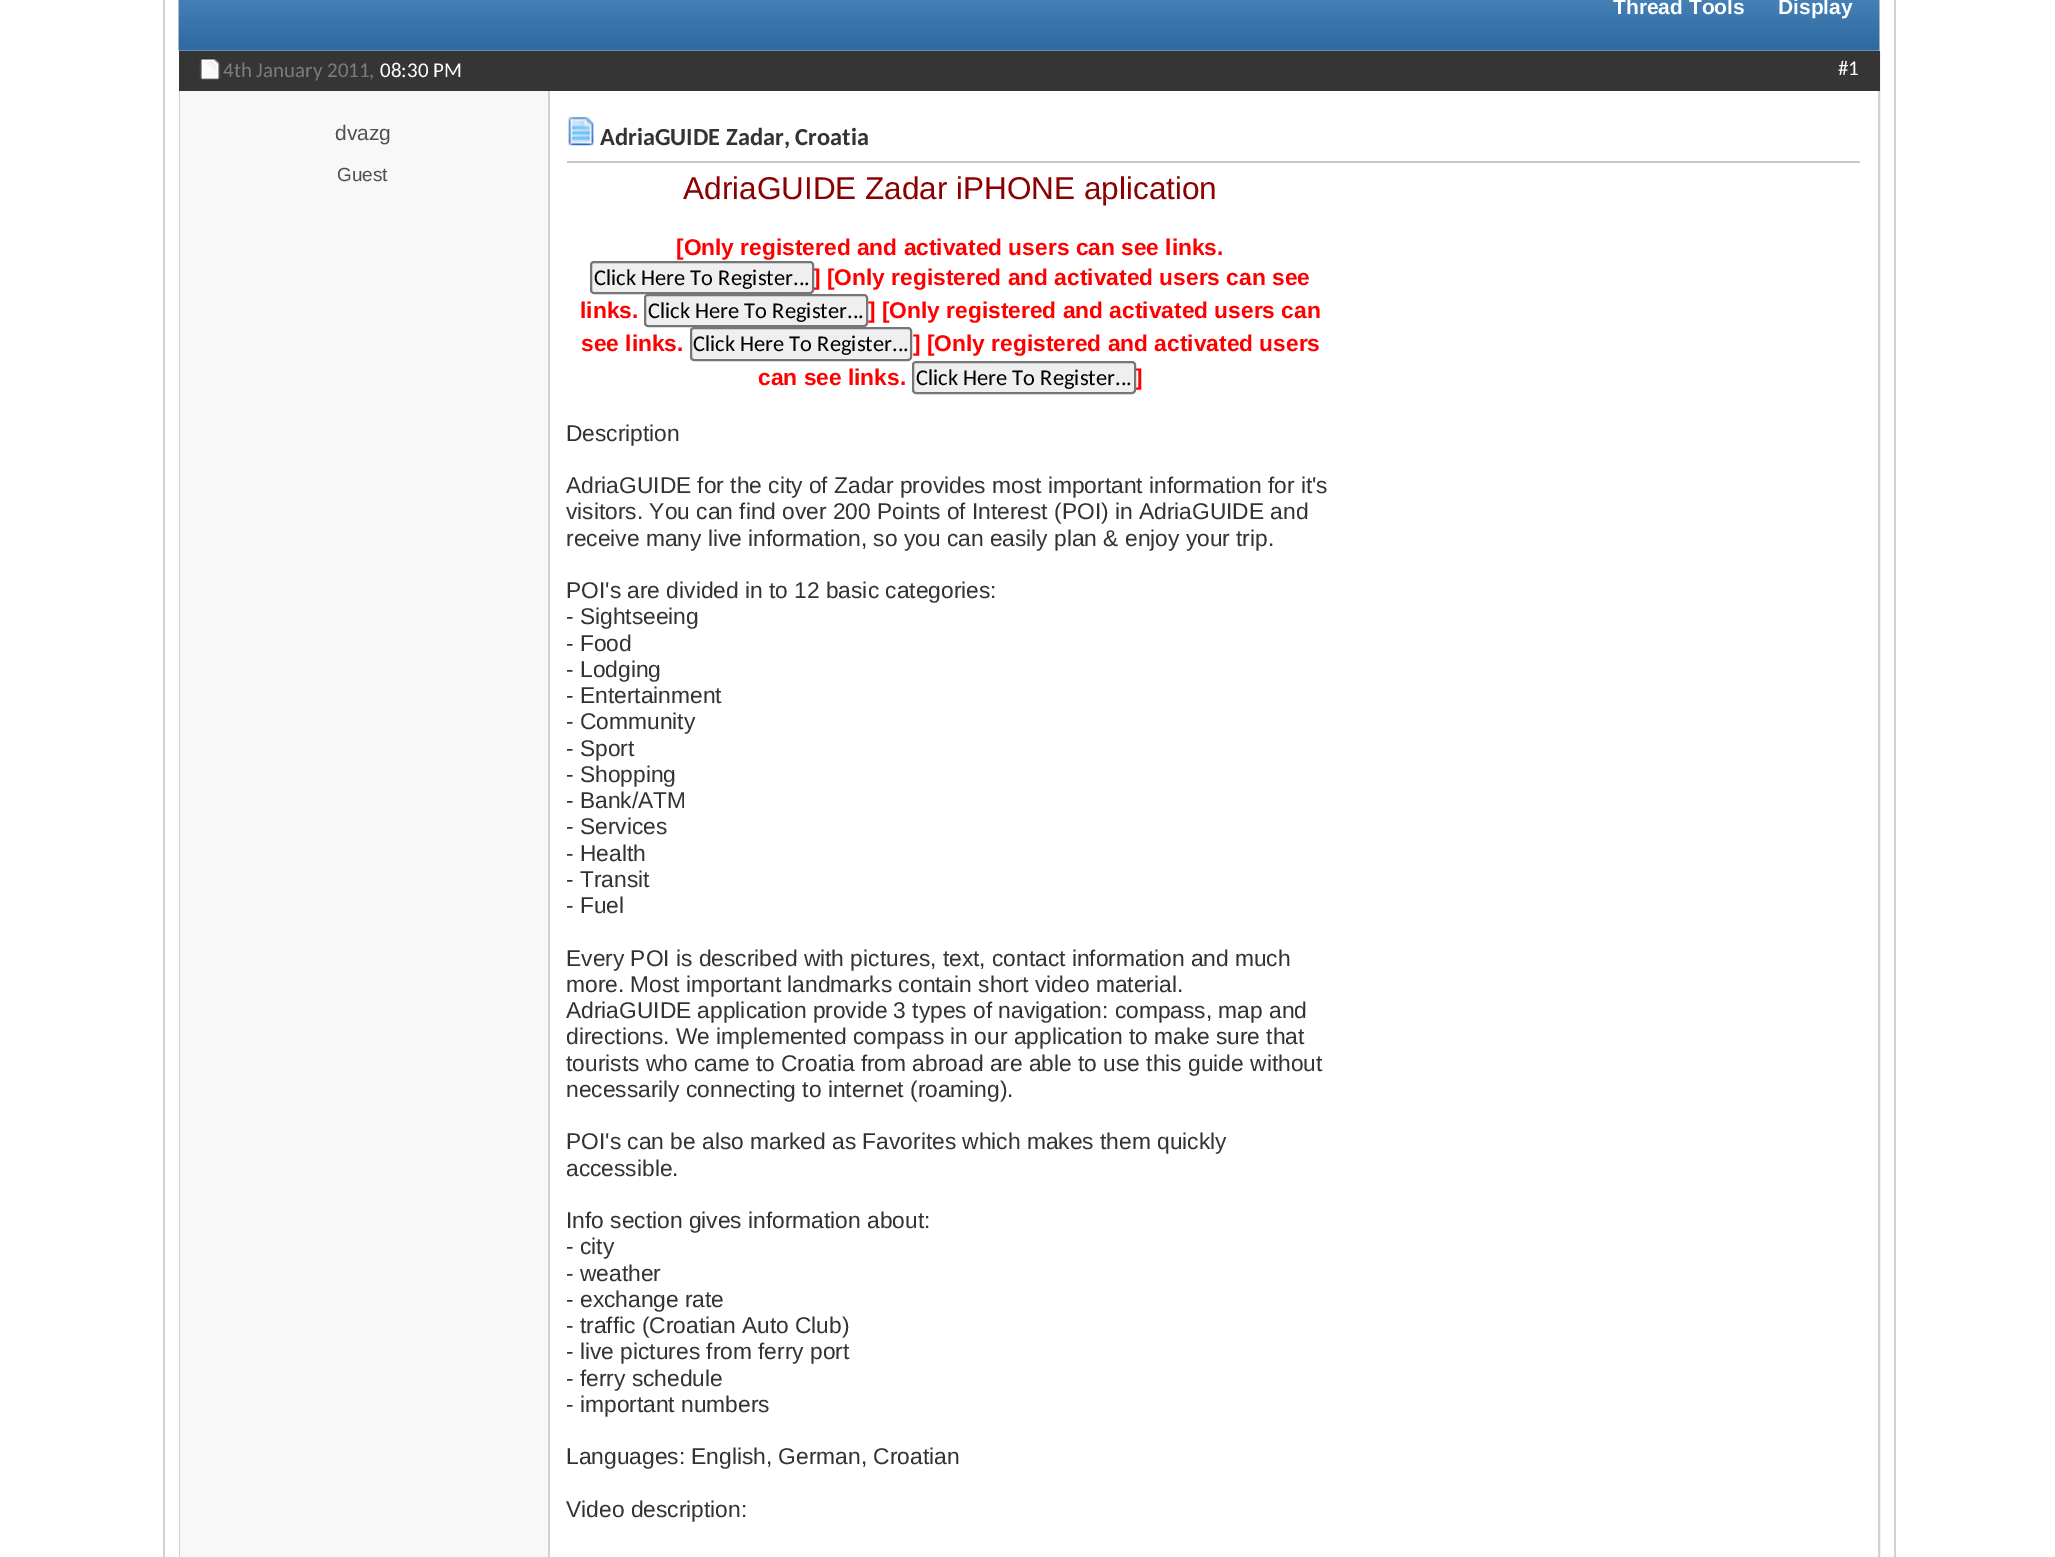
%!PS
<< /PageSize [2055 1557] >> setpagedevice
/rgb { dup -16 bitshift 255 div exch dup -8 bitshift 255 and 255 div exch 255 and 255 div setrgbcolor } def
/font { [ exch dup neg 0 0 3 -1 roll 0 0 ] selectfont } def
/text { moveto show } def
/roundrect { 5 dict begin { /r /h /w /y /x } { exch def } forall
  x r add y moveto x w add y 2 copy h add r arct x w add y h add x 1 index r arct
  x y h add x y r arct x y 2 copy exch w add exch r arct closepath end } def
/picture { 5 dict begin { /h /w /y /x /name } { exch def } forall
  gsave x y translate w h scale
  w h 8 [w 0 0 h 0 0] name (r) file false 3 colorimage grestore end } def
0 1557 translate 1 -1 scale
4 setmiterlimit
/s1 { /LiberationSans-Bold 21 font 16#FFFFFF rgb } def
/s2 { /Carlito-Regular 21 font 16#7C7C7C rgb } def
/s3 { /Carlito-Regular 21 font 16#FFFFFF rgb } def
/s4 { /LiberationSans-Regular 21 font 16#4D5153 rgb } def
/s5 { /LiberationSans-Regular 19 font 16#4D5153 rgb } def
/s6 { /Carlito-Bold 24.5 font 16#333333 rgb } def
/s7 { /LiberationSans-Regular 31.5 font 16#8B0000 rgb } def
/s8 { /LiberationSans-Bold 22.75 font 16#FF0000 rgb } def
/s9 { /Carlito-Regular 22.5 font 16#000000 rgb } def
/s10 { /LiberationSans-Regular 22.75 font 16#333333 rgb } def
16#FFFFFF rgb
0 0 2055 1557 rectfill
16#D1D1D1 rgb
1894 0 2 1557 rectfill
163 0 2 1557 rectfill
(pic1.raw) 178 0 1702 51 picture
s1
(Thread Tools) 1613 14 text
(Display) 1778 14 text
16#D1D1D1 rgb
2 setlinewidth
180 52 1699 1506 rectstroke
16#353535 rgb
179 51 1701 40 rectfill
(pic2.raw) 199 58 22 23 picture
s2
(4th January 2011,) 223 77 text
s3
(08:30 PM) 380 77 text
(#1) 1838 75 text
16#F8F8F8 rgb
180 91 368 1466 rectfill
s4
(dvazg) 335 140 text
s5
(Guest) 337 181 text
16#D1D1D1 rgb
548 91 2 1466 rectfill
16#C8C8C8 rgb
567 161 1293 2 rectfill
(pic3.raw) 568 117 26 29 picture
s6
(AdriaGUIDE Zadar, Croatia) 600 145 text
s7
(AdriaGUIDE Zadar iPHONE aplication) 683 199 text
s8
([Only registered and activated users can see links.) 676 255 text
(] [Only registered and activated users can see) 813 285 text
16#EFEFEF rgb
591 262 222 31 3 roundrect gsave fill grestore
16#767676 rgb
stroke
s9
(Click Here To Register...) 594 285 text
s8
(links.) 580 318 text
(] [Only registered and activated users can) 868 318 text
16#EFEFEF rgb
645 295 222 31 3 roundrect gsave fill grestore
16#767676 rgb
stroke
s9
(Click Here To Register...) 648 318 text
s8
(see links.) 581 351 text
16#EFEFEF rgb
691 328 220 32 3 roundrect gsave fill grestore
16#767676 rgb
stroke
s9
(Click Here To Register...) 693 351 text
s8
(] [Only registered and activated users) 913 351 text
(can see links.) 758 385 text
(]) 1135 385 text
16#EFEFEF rgb
913 362 222 31 3 roundrect gsave fill grestore
16#767676 rgb
stroke
s9
(Click Here To Register...) 916 385 text
s10
(Description) 566 441 text
(AdriaGUIDE for the city of Zadar provides most important information for it's) 566 493 text
(visitors. You can find over 200 Points of Interest \(POI\) in AdriaGUIDE and) 566 519 text
(receive many live information, so you can easily plan & enjoy your trip.) 566 546 text
(POI's are divided in to 12 basic categories:) 566 598 text
(- Sightseeing) 566 624 text
(- Food) 566 651 text
(- Lodging) 566 677 text
(- Entertainment) 566 703 text
(- Community) 566 729 text
(- Sport) 566 756 text
(- Shopping) 566 782 text
(- Bank/ATM) 566 808 text
(- Services) 566 834 text
(- Health) 566 861 text
(- Transit) 566 887 text
(- Fuel) 566 913 text
(Every POI is described with pictures, text, contact information and much) 566 966 text
(more. Most important landmarks contain short video material.) 566 992 text
(AdriaGUIDE application provide 3 types of navigation: compass, map and) 566 1018 text
(directions. We implemented compass in our application to make sure that) 566 1044 text
(tourists who came to Croatia from abroad are able to use this guide without) 566 1071 text
(necessarily connecting to internet \(roaming\).) 566 1097 text
(POI's can be also marked as Favorites which makes them quickly) 566 1149 text
(accessible.) 566 1176 text
(Info section gives information about:) 566 1228 text
(- city) 566 1254 text
(- weather) 566 1281 text
(- exchange rate) 566 1307 text
(- traffic \(Croatian Auto Club\)) 566 1333 text
(- live pictures from ferry port) 566 1359 text
(- ferry schedule) 566 1386 text
(- important numbers) 566 1412 text
(Languages: English, German, Croatian) 566 1464 text
(Video description:) 566 1517 text
showpage
